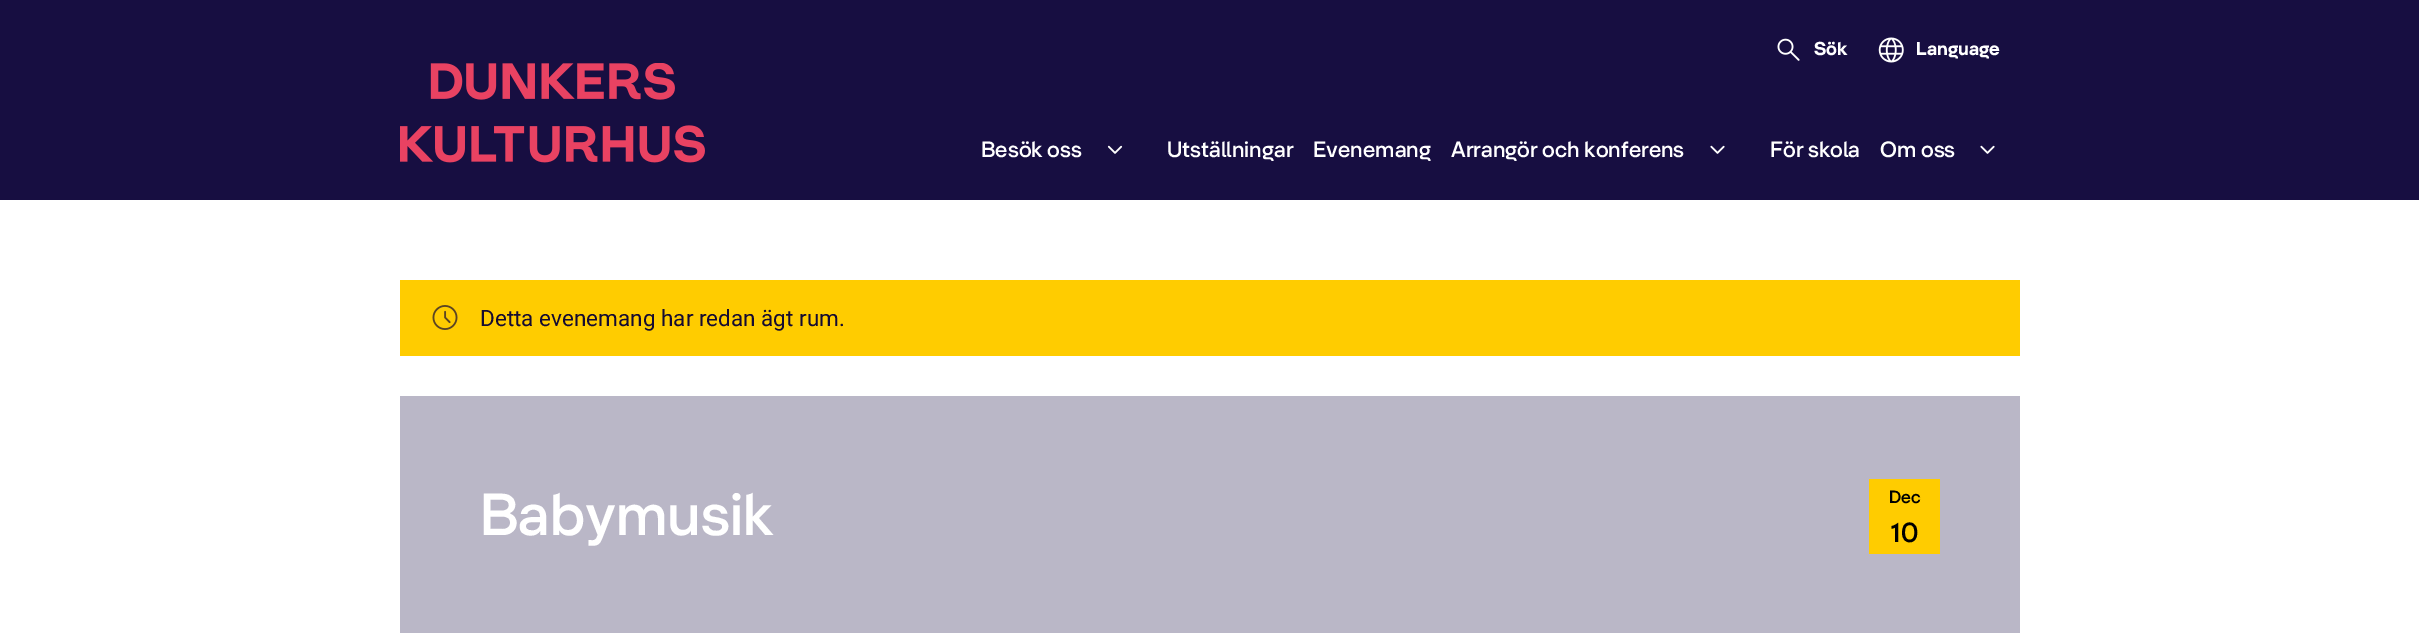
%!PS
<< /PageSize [2419 633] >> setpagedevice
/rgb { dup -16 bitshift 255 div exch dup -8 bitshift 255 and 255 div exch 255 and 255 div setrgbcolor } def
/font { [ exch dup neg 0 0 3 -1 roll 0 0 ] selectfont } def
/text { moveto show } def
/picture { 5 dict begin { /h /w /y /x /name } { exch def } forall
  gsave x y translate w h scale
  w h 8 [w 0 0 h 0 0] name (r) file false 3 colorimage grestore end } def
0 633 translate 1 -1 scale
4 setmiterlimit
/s1 { /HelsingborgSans-Bold 19 font 16#FFFFFF rgb } def
/s2 { /HelsingborgSans-Medium 22.5 font 16#FFFFFF rgb } def
/s3 { /Roboto-Regular 22.5 font 16#150B32 rgb } def
/s4 { /HelsingborgSans-Medium 60 font 16#FFFFFF rgb } def
/s5 { /HelsingborgSans-Medium 18 font 16#000000 rgb } def
/s6 { /HelsingborgSans-Medium 28 font 16#000000 rgb } def
16#FFFFFF rgb
0 0 2419 633 rectfill
16#170E41 rgb
0 0 2419 200 rectfill
(pic1.raw) 1777 38 23 23 picture
s1
(Sök) 1814 55 text
(pic2.raw) 1878 37 26 26 picture
(Language) 1916 55 text
(pic3.raw) 400 63 305 100 picture
s2
(Besök oss) 981 157 text
(pic4.raw) 1107 145 16 9 picture
(Utställningar) 1167 157 text
(Evenemang) 1313 157 text
(Arrangör och konferens) 1451 157 text
(pic5.raw) 1710 145 15 9 picture
(För skola) 1770 157 text
(Om oss) 1880 157 text
(pic5.raw) 1980 145 15 9 picture
16#FFCC00 rgb
400 280 1620 76 rectfill
(pic6.raw) 432 305 26 25 picture
s3
(Detta evenemang har redan ägt rum.) 480 326 text
16#BAB7C7 rgb
400 396 1620 237 rectfill
s4
(Babymusik) 480 535 text
16#FFCC00 rgb
1869 479 71 75 rectfill
s5
(Dec) 1889 503 text
s6
(10) 1890 542 text
showpage
